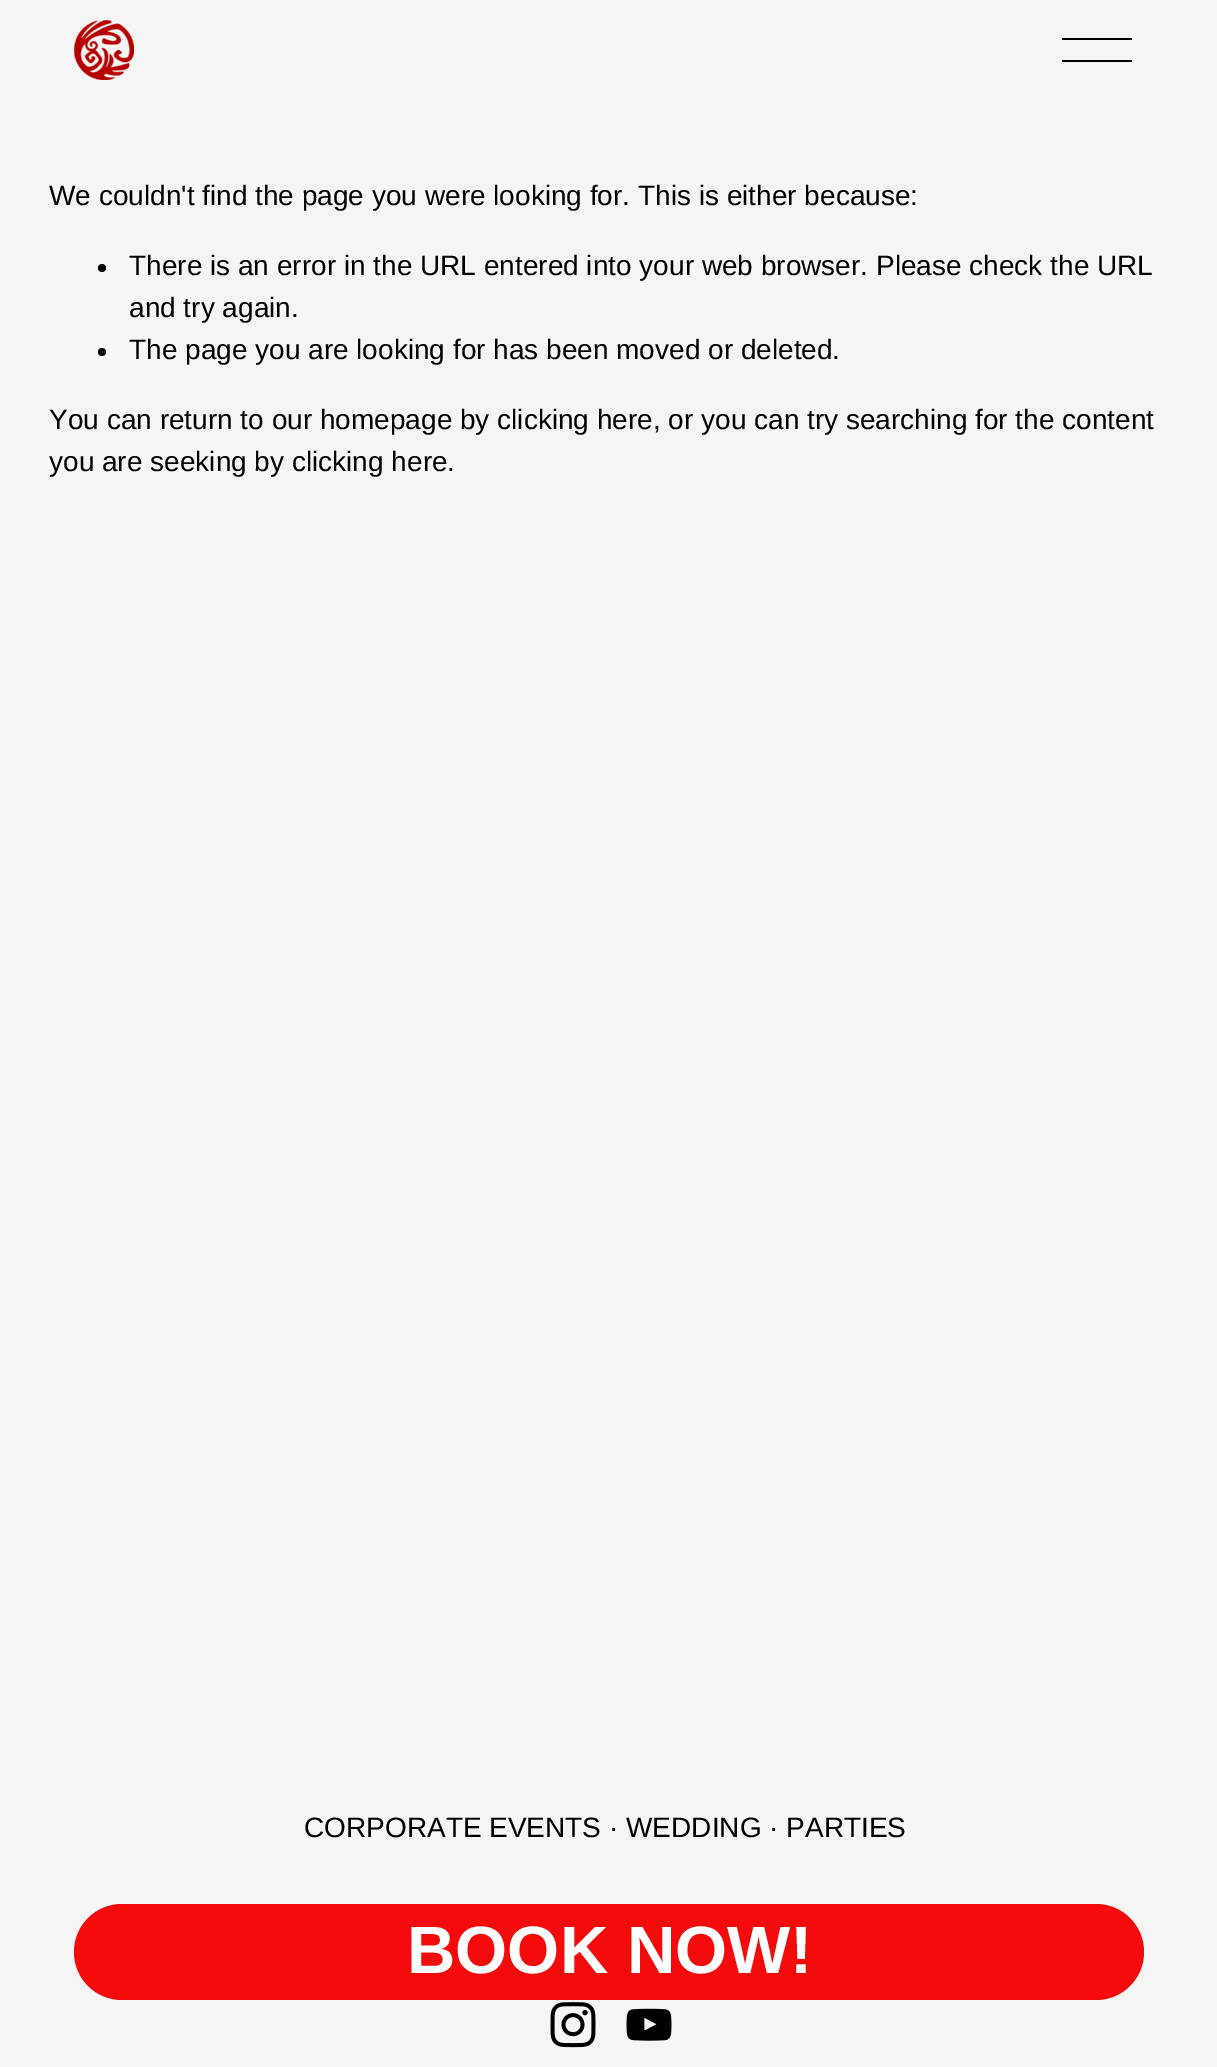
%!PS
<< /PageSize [1217 2067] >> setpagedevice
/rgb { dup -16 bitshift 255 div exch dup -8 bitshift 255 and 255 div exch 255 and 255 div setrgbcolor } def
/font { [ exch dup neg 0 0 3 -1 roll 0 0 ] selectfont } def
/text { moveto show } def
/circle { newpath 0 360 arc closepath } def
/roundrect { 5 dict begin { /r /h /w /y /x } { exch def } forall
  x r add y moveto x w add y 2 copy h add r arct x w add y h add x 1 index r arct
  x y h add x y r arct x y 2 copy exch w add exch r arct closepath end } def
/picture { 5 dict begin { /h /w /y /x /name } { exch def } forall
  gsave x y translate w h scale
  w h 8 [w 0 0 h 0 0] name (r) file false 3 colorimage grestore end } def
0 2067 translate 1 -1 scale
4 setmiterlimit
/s1 { /LiberationSans-Regular 28 font 16#000000 rgb } def
/s2 { /LiberationSans-Bold 67 font 16#FFFFFF rgb } def
16#F5F5F5 rgb
0 0 1217 2067 rectfill
(pic1.raw) 74 20 60 60 picture
16#000000 rgb
1062 38 70 2 rectfill
1062 60 70 2 rectfill
s1
(We couldn't find the page you were looking for. This is either because:) 49 205 text
102 268 4 circle fill
(There is an error in the URL entered into your web browser. Please check the URL) 129 275 text
(and try again.) 129 317 text
102 352 4 circle fill
(The page you are looking for has been moved or deleted.) 129 359 text
(You can return to our homepage by clicking here, or you can try searching for the content) 49 429 text
(you are seeking by clicking here.) 49 471 text
(CORPORATE EVENTS · WEDDING · PARTIES) 304 1837 text
16#F30A0A rgb
74 1904 1070 96 48 roundrect fill
s2
(BOOK NOW!) 407 1973 text
(pic2.raw) 550 2002 46 46 picture
(pic3.raw) 626 2008 46 33 picture
showpage
